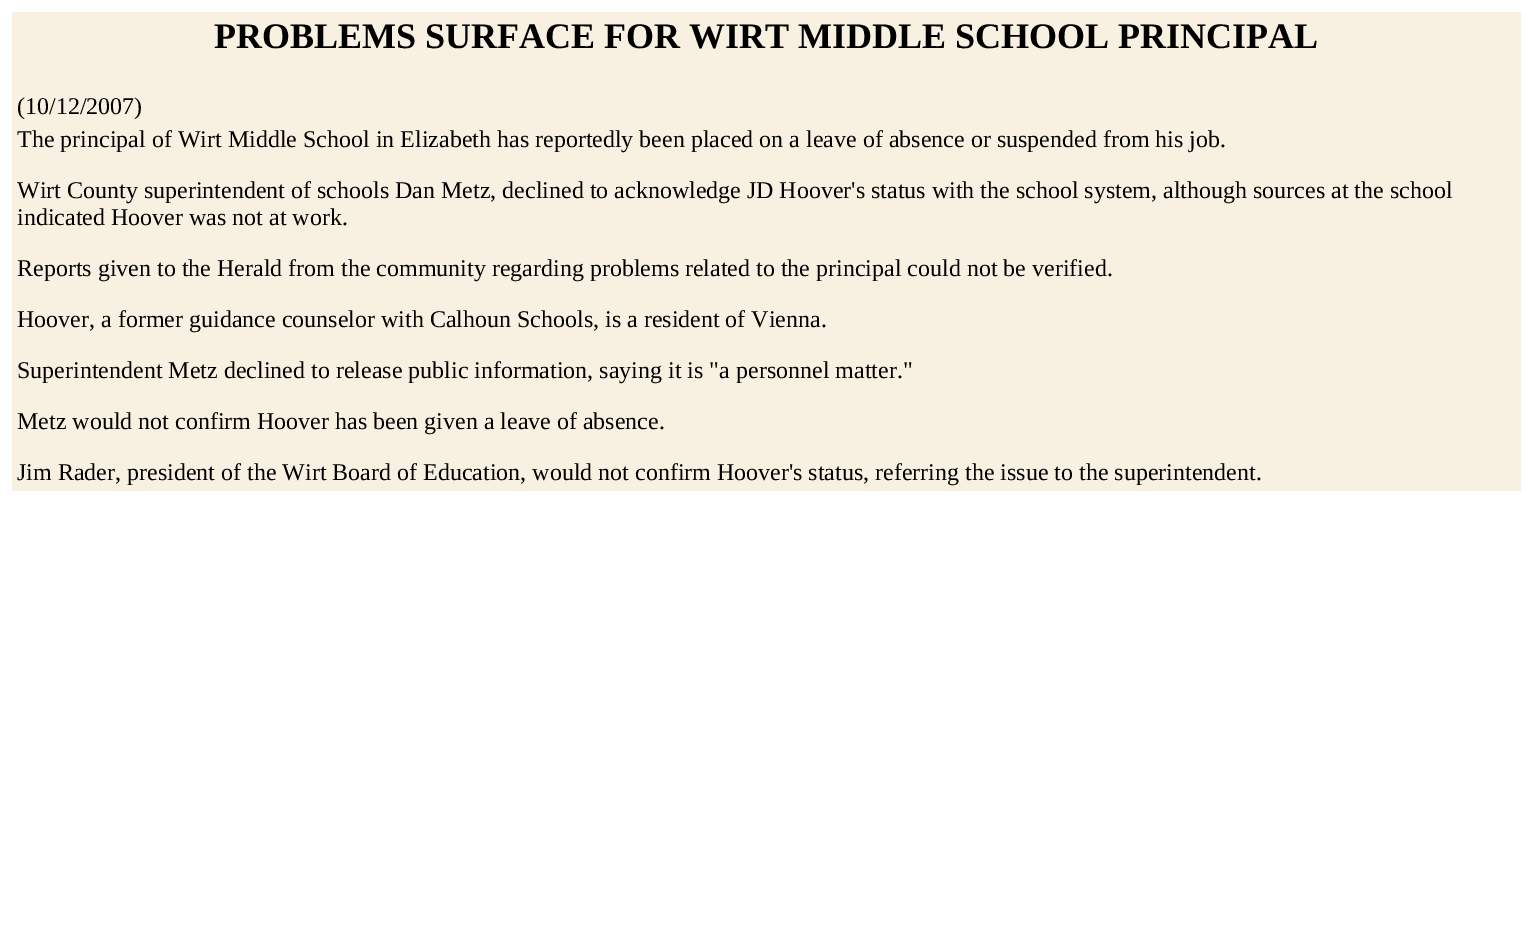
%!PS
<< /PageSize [1533 941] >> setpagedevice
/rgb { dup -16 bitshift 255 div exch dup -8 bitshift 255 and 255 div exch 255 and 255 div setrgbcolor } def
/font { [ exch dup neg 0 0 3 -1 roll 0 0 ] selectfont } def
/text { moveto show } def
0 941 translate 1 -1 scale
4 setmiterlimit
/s1 { /LiberationSerif-Bold 36 font 16#000000 rgb } def
/s2 { /LiberationSerif-Regular 24 font 16#000000 rgb } def
16#FFFFFF rgb
0 0 1533 941 rectfill
16#F8F0E0 rgb
12 12 1509 479 rectfill
s1
(PROBLEMS SURFACE FOR WIRT MIDDLE SCHOOL PRINCIPAL) 214 48 text
s2
(\(10/12/2007\)) 17 114 text
(The principal of Wirt Middle School in Elizabeth has reportedly been placed on a leave of absence or suspended from his job.) 17 147 text
(Wirt County superintendent of schools Dan Metz, declined to acknowledge JD Hoover's status with the school system, although sources at the school) 17 198 text
(indicated Hoover was not at work.) 17 225 text
(Reports given to the Herald from the community regarding problems related to the principal could not be verified.) 17 276 text
(Hoover, a former guidance counselor with Calhoun Schools, is a resident of Vienna.) 17 327 text
(Superintendent Metz declined to release public information, saying it is "a personnel matter.") 17 378 text
(Metz would not confirm Hoover has been given a leave of absence.) 17 429 text
(Jim Rader, president of the Wirt Board of Education, would not confirm Hoover's status, referring the issue to the superintendent.) 17 480 text
showpage
